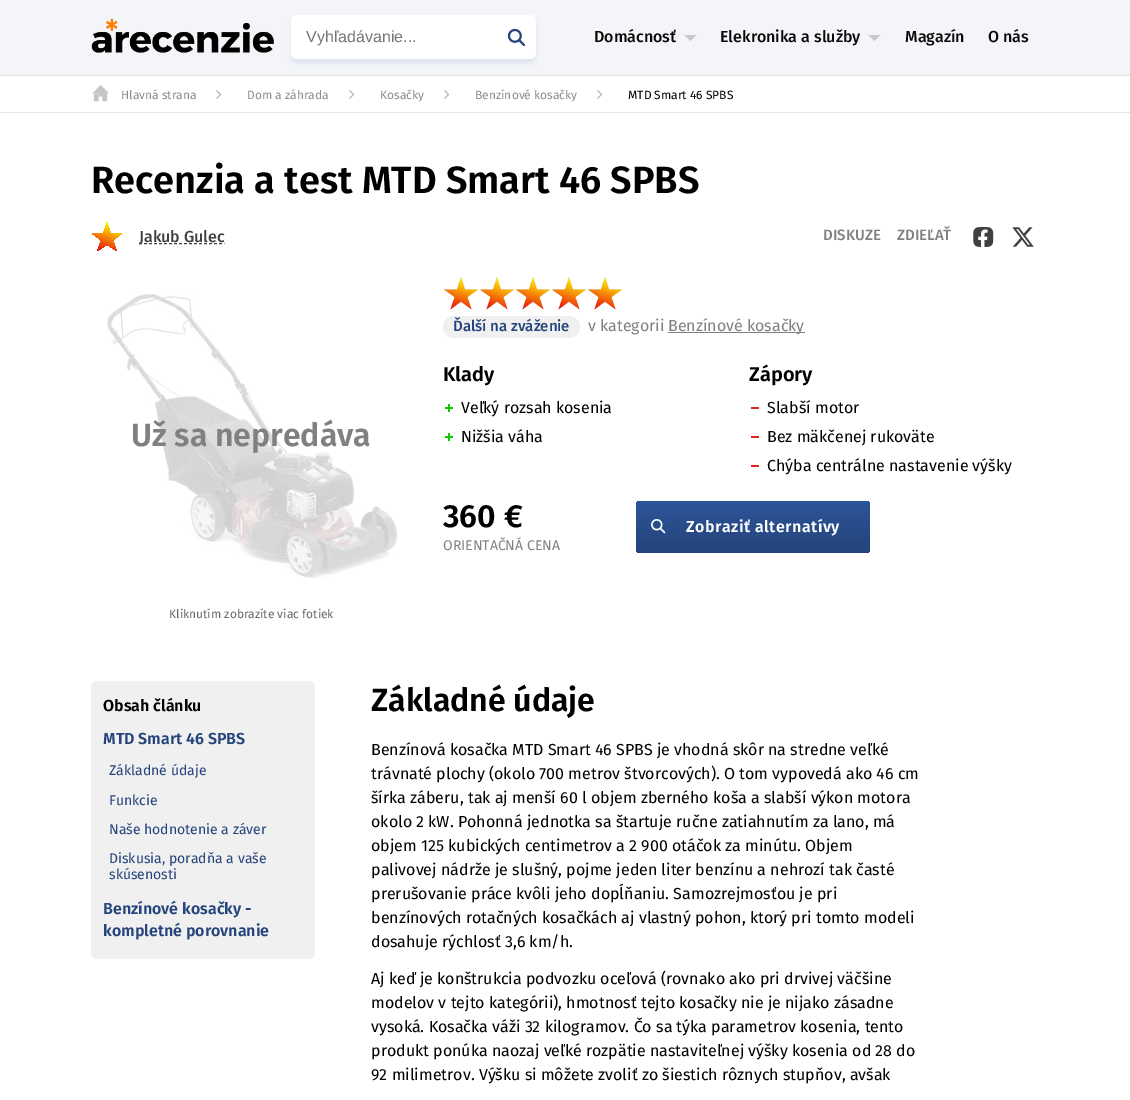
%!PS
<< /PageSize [1130 1100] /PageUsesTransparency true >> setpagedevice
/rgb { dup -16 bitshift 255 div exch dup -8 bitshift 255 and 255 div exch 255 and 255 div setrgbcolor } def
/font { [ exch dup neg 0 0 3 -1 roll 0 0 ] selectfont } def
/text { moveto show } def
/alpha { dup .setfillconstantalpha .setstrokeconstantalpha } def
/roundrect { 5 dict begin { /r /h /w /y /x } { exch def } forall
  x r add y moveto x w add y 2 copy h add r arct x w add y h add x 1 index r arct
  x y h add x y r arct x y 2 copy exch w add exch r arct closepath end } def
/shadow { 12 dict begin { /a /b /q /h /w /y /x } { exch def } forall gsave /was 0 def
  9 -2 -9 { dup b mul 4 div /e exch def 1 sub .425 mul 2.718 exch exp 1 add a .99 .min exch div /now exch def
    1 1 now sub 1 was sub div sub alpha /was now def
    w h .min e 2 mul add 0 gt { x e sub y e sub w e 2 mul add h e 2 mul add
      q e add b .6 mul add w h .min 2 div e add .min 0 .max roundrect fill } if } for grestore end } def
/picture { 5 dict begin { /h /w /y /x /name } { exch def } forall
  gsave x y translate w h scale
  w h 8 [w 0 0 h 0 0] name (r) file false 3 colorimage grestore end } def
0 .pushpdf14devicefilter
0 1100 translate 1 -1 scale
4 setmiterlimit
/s1 { /LiberationSans-Regular 16 font 16#757575 rgb } def
/s2 { /FiraSans-Medium 16 font 16#0A0A0A rgb } def
/s3 { /FiraSans-Regular 12 font 16#8B8B8B rgb } def
/s4 { /FiraSans-Regular 12 font 16#000000 rgb } def
/s5 { /FiraSans-SemiBold 38 font 16#000000 rgb } def
/s6 { /FiraSans-Medium 16 font 16#404040 rgb } def
/s7 { /FiraSans-Medium 15 font 16#808080 rgb } def
/s8 { /FiraSans-Medium 15 font 16#24447B rgb } def
/s9 { /FiraSans-Regular 16 font 16#808080 rgb } def
/s10 { /FiraSans-SemiBold 32 font 16#808080 rgb } def
/s11 { /FiraSans-Regular 12 font 16#666666 rgb } def
/s12 { /FiraSans-SemiBold 20 font 16#000000 rgb } def
/s13 { /FiraSans-Regular 16 font 16#000000 rgb } def
/s14 { /FiraSans-SemiBold 32 font 16#000000 rgb } def
/s15 { /FiraSans-Regular 14 font 16#808080 rgb } def
/s16 { /FiraSans-SemiBold 16 font 16#000000 rgb } def
/s17 { /FiraSans-SemiBold 16 font 16#24447B rgb } def
/s18 { /FiraSans-Regular 14 font 16#24447B rgb } def
16#FFFFFF rgb
0 0 1130 1100 rectfill
16#F4F5F8 rgb
0 0 1130 74 rectfill
16#F2F2F2 rgb
0 74 1130 1 rectfill
(pic1.raw) 91 18 183 35 picture
16#24447B rgb
291 19 245 44 6 2 0.1 shadow
16#FFFFFF rgb
291 15 245 44 6 roundrect fill
s1
(Vyhľadávanie...) 306 42 text
(pic2.raw) 507 28 18 18 picture
s2
(Domácnosť) 594 42 text
16#C9C9C9 rgb
690.5 41 moveto 696.5 35 lineto 684.5 35 lineto closepath fill
s2
(Elekronika a služby) 720 42 text
16#C9C9C9 rgb
874.5 41 moveto 880.5 35 lineto 868.5 35 lineto closepath fill
s2
(Magazín) 905 42 text
(O nás) 988 42 text
16#E5E5E5 rgb
0 75 1130 1 rectfill
0 112 1130 1 rectfill
(pic3.raw) 92 85 17 17 picture
s3
(Hlavná strana) 121 99 text
16#B4B4B4 rgb
216.5 90.5 moveto 220.5 94.5 lineto 216.5 98.5 lineto stroke
s3
(Dom a záhrada) 247 99 text
16#B4B4B4 rgb
349.5 90.5 moveto 353.5 94.5 lineto 349.5 98.5 lineto stroke
s3
(Kosačky) 380 99 text
16#B4B4B4 rgb
444.5 90.5 moveto 448.5 94.5 lineto 444.5 98.5 lineto stroke
s3
(Benzínové kosačky) 475 99 text
16#B4B4B4 rgb
597.5 90.5 moveto 601.5 94.5 lineto 597.5 98.5 lineto stroke
s4
(MTD Smart 46 SPBS) 628 99 text
s5
(Recenzia a test MTD Smart 46 SPBS) 91 193 text
gsave 107 222.5 moveto 110.5 233.5 lineto 122 233.5 lineto 113 240 lineto 116.5 251 lineto 107 244.5 lineto 97.5 251 lineto 101 240 lineto 92 233.5 lineto 103.5 233.5 lineto closepath clip newpath
<< /ShadingType 2 /ColorSpace /DeviceRGB /Coords [97 251 107 222] /Extend [true true] /Function << /FunctionType 2 /Domain [0 1] /C0 [0.918 0.02 0.059] /C1 [1 0.973 0] /N 1 >> >> shfill grestore
16#404040 rgb
[3 2] 0 setdash
139 243.5 moveto 224.5 243.5 lineto stroke
s6
(Jakub Gulec) 139 242 text
s7
(DISKUZE) 823 240 text
(ZDIEĽAŤ) 897 240 text
(pic4.raw) 973 227 21 20 picture
(pic5.raw) 1012 227 22 20 picture
(pic6.raw) 444 277 178 33 picture
(pic7.raw) 444 277 178 33 picture
16#F0F0F0 rgb
443 316 137 22 11 roundrect fill
s8
(Ďalší na zváženie) 453 331 text
s9
(v kategorii) 588 331 text
668 332 137 1 rectfill
(Benzínové kosačky) 668 331 text
(pic8.raw) 107 293 291 285 picture
s10
(Už sa nepredáva) 131 446 text
s11
(Kliknutím zobrazíte viac fotiek) 169 618 text
s12
(Klady) 443 381 text
16#10CA00 rgb
445 407 8 2 rectfill
448 404 2 8 rectfill
s13
(Veľký rozsah kosenia) 461 413 text
16#10CA00 rgb
445 436 8 2 rectfill
448 433 2 8 rectfill
s13
(Nižšia váha) 461 442 text
s12
(Zápory) 749 381 text
16#E52425 rgb
751 407 8 2 rectfill
s13
(Slabší motor) 767 413 text
16#E52425 rgb
751 436 8 2 rectfill
s13
(Bez mäkčenej rukoväte) 767 442 text
16#E52425 rgb
751 465 8 2 rectfill
s13
(Chýba centrálne nastavenie výšky) 767 471 text
s14
(360 €) 443 527 text
s15
(ORIENTAČNÁ CENA) 443 550 text
gsave 636 501 234 52 4 roundrect clip newpath
<< /ShadingType 2 /ColorSpace /DeviceRGB /Coords [753 501 753 553] /Extend [true true] /Function << /FunctionType 2 /Domain [0 1] /C0 [0.176 0.333 0.6] /C1 [0.141 0.267 0.482] /N 1 >> >> shfill grestore
(pic9.raw) 651 519 15 15 picture
/FiraSans-SemiBold 16 font
16#FFFFFF rgb
686 532 moveto 0.5 0 (Zobraziť alternatívy) ashow
16#F0F0F0 rgb
91 681 224 278 6 roundrect fill
s16
(Obsah článku) 103 711 text
s17
(MTD Smart 46 SPBS) 103 744 text
s18
(Základné údaje) 109 775 text
(Funkcie) 109 805 text
(Naše hodnotenie a záver) 109 834 text
(Diskusia, poradňa a vaše) 109 863 text
(skúsenosti) 109 879 text
s17
(Benzínové kosačky -) 103 914 text
(kompletné porovnanie) 103 936 text
s14
(Základné údaje) 371 711 text
s13
(Benzínová kosačka MTD Smart 46 SPBS je vhodná skôr na stredne veľké) 371 755 text
(trávnaté plochy \(okolo 700 metrov štvorcových\). O tom vypovedá ako 46 cm) 371 779 text
(šírka záberu, tak aj menší 60 l objem zberného koša a slabší výkon motora) 371 803 text
(okolo 2 kW. Pohonná jednotka sa štartuje ručne zatiahnutím za lano, má) 371 827 text
(objem 125 kubických centimetrov a 2 900 otáčok za minútu. Objem) 371 851 text
(palivovej nádrže je slušný, pojme jeden liter benzínu a nehrozí tak časté) 371 875 text
(prerušovanie práce kvôli jeho dopĺňaniu. Samozrejmosťou je pri) 371 899 text
(benzínových rotačných kosačkách aj vlastný pohon, ktorý pri tomto modeli) 371 923 text
(dosahuje rýchlosť 3,6 km/h.) 371 947 text
(Aj keď je konštrukcia podvozku oceľová \(rovnako ako pri drvivej väčšine) 371 984 text
(modelov v tejto kategórii\), hmotnosť tejto kosačky nie je nijako zásadne) 371 1008 text
(vysoká. Kosačka váži 32 kilogramov. Čo sa týka parametrov kosenia, tento) 371 1032 text
(produkt ponúka naozaj veľké rozpätie nastaviteľnej výšky kosenia od 28 do) 371 1056 text
(92 milimetrov. Výšku si môžete zvoliť zo šiestich rôznych stupňov, avšak) 371 1080 text
.poppdf14devicefilter showpage
